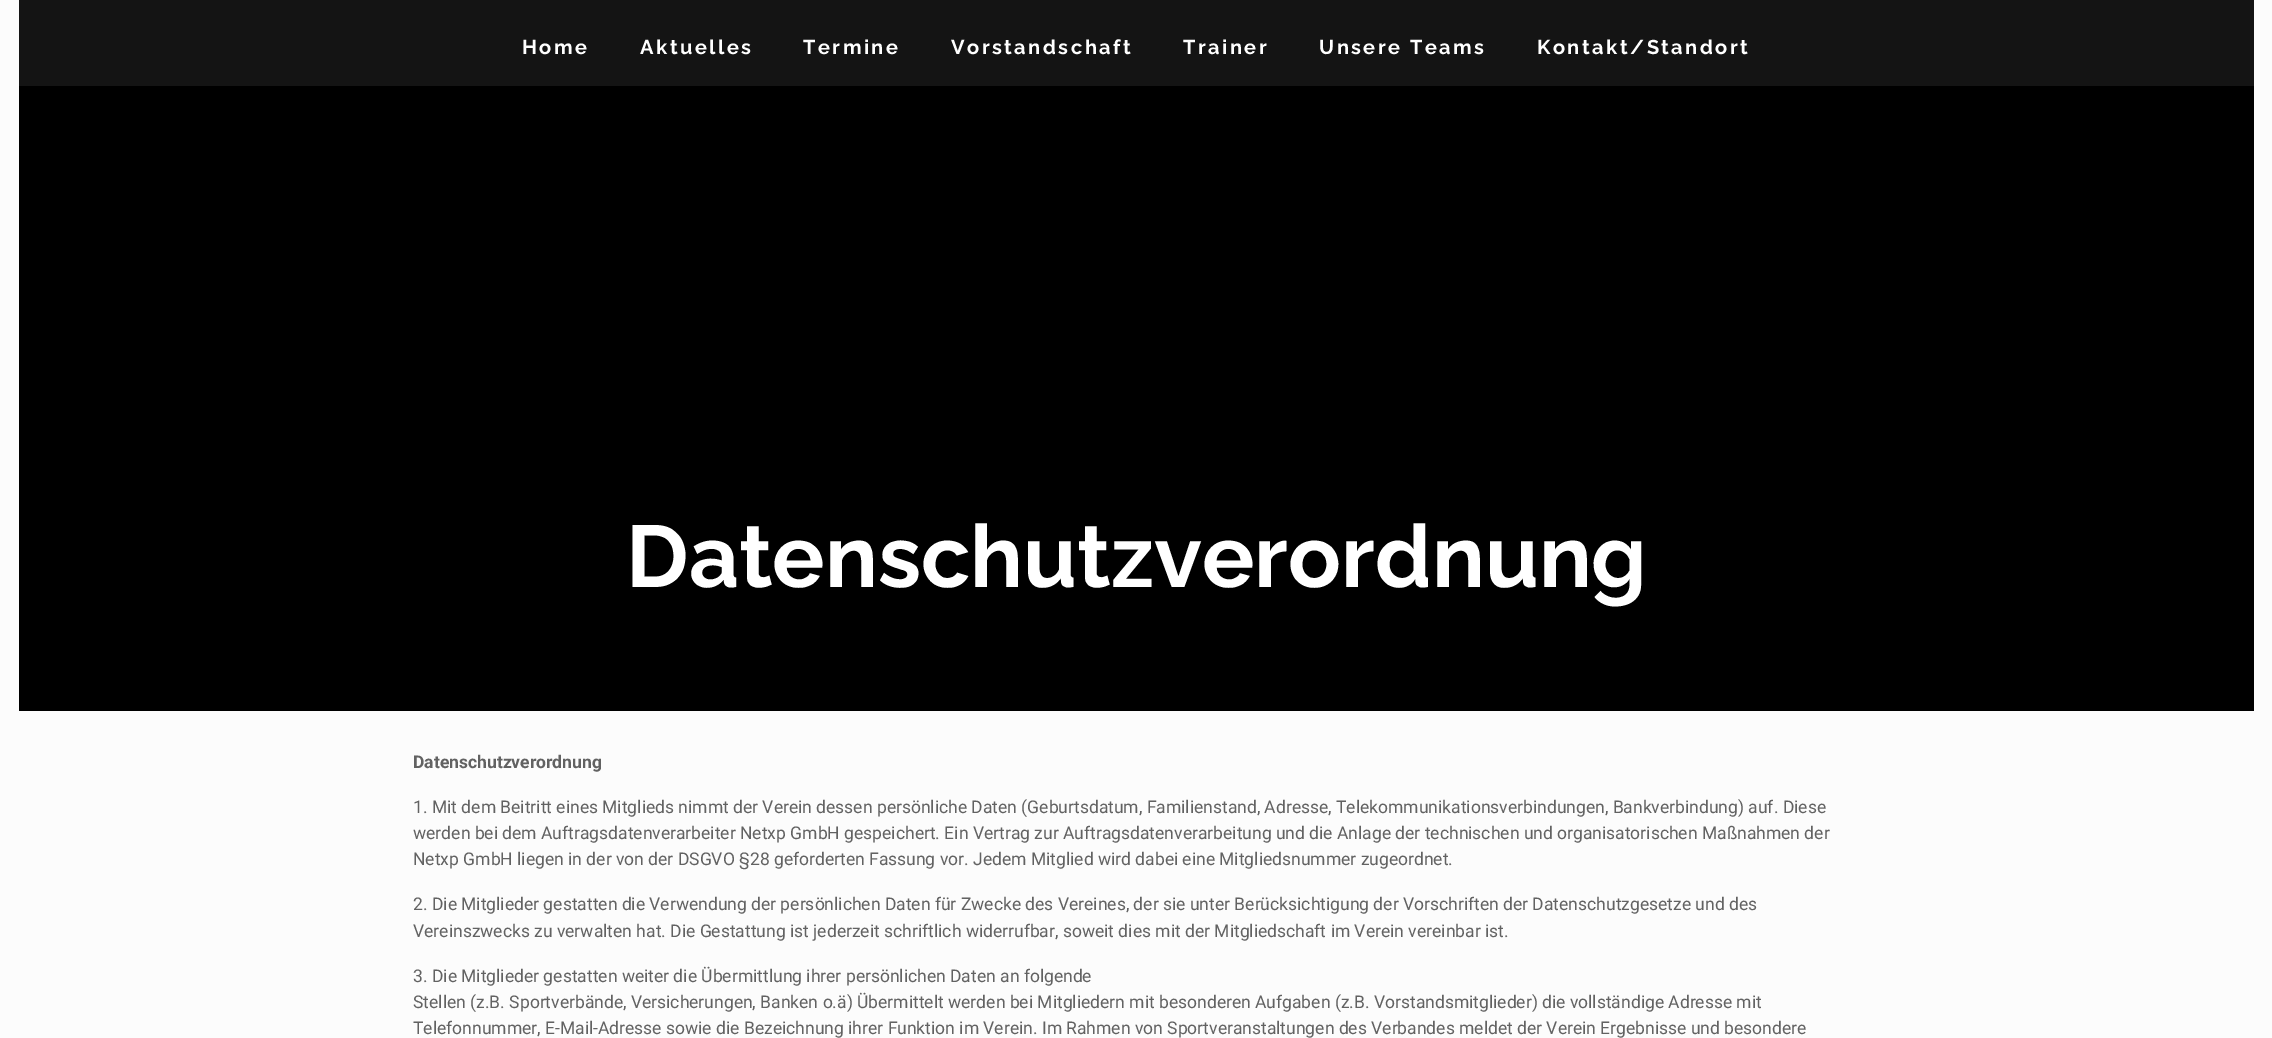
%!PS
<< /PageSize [2272 1038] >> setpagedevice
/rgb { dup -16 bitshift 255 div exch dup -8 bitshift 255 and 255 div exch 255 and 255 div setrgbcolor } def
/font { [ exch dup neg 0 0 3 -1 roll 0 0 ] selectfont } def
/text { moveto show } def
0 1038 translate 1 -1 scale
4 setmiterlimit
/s1 { /Raleway-Bold 87.5 font 16#FFFFFF rgb } def
/s2 { /Roboto-Bold 17.5 font 16#626262 rgb } def
/s3 { /Roboto-Regular 17.5 font 16#626262 rgb } def
16#FCFCFC rgb
0 0 2272 1038 rectfill
16#000000 rgb
19 86 2235 625 rectfill
16#141414 rgb
19 0 2235 86 rectfill
/Raleway-Bold 20 font
16#FFFFFF rgb
522 54 moveto 2.5 0 (Home) ashow
640 54 moveto 2.5 0 (Aktuelles) ashow
803 54 moveto 2.5 0 (Termine) ashow
951 54 moveto 2.5 0 (Vorstandschaft) ashow
1183 54 moveto 2.5 0 (Trainer) ashow
1319 54 moveto 2.5 0 (Unsere Teams) ashow
1537 54 moveto 2.5 0 (Kontakt/Standort) ashow
s1
(Datenschutzverordnung) 626 587 text
s2
(Datenschutzverordnung) 413 768 text
s3
(1. Mit dem Beitritt eines Mitglieds nimmt der Verein dessen persönliche Daten \(Geburtsdatum, Familienstand, Adresse, Telekommunikationsverbindungen, Bankverbindung\) auf. Diese) 413 813 text
(werden bei dem Auftragsdatenverarbeiter Netxp GmbH gespeichert. Ein Vertrag zur Auftragsdatenverarbeitung und die Anlage der technischen und organisatorischen Maßnahmen der) 413 839 text
(Netxp GmbH liegen in der von der DSGVO §28 geforderten Fassung vor. Jedem Mitglied wird dabei eine Mitgliedsnummer zugeordnet.) 413 865 text
(2. Die Mitglieder gestatten die Verwendung der persönlichen Daten für Zwecke des Vereines, der sie unter Berücksichtigung der Vorschriften der Datenschutzgesetze und des) 413 910 text
(Vereinszwecks zu verwalten hat. Die Gestattung ist jederzeit schriftlich widerrufbar, soweit dies mit der Mitgliedschaft im Verein vereinbar ist.) 413 937 text
(3. Die Mitglieder gestatten weiter die Übermittlung ihrer persönlichen Daten an folgende) 413 982 text
(Stellen \(z.B. Sportverbände, Versicherungen, Banken o.ä\) Übermittelt werden bei Mitgliedern mit besonderen Aufgaben \(z.B. Vorstandsmitglieder\) die vollständige Adresse mit) 413 1008 text
(Telefonnummer, E-Mail-Adresse sowie die Bezeichnung ihrer Funktion im Verein. Im Rahmen von Sportveranstaltungen des Verbandes meldet der Verein Ergebnisse und besondere) 413 1034 text
showpage
